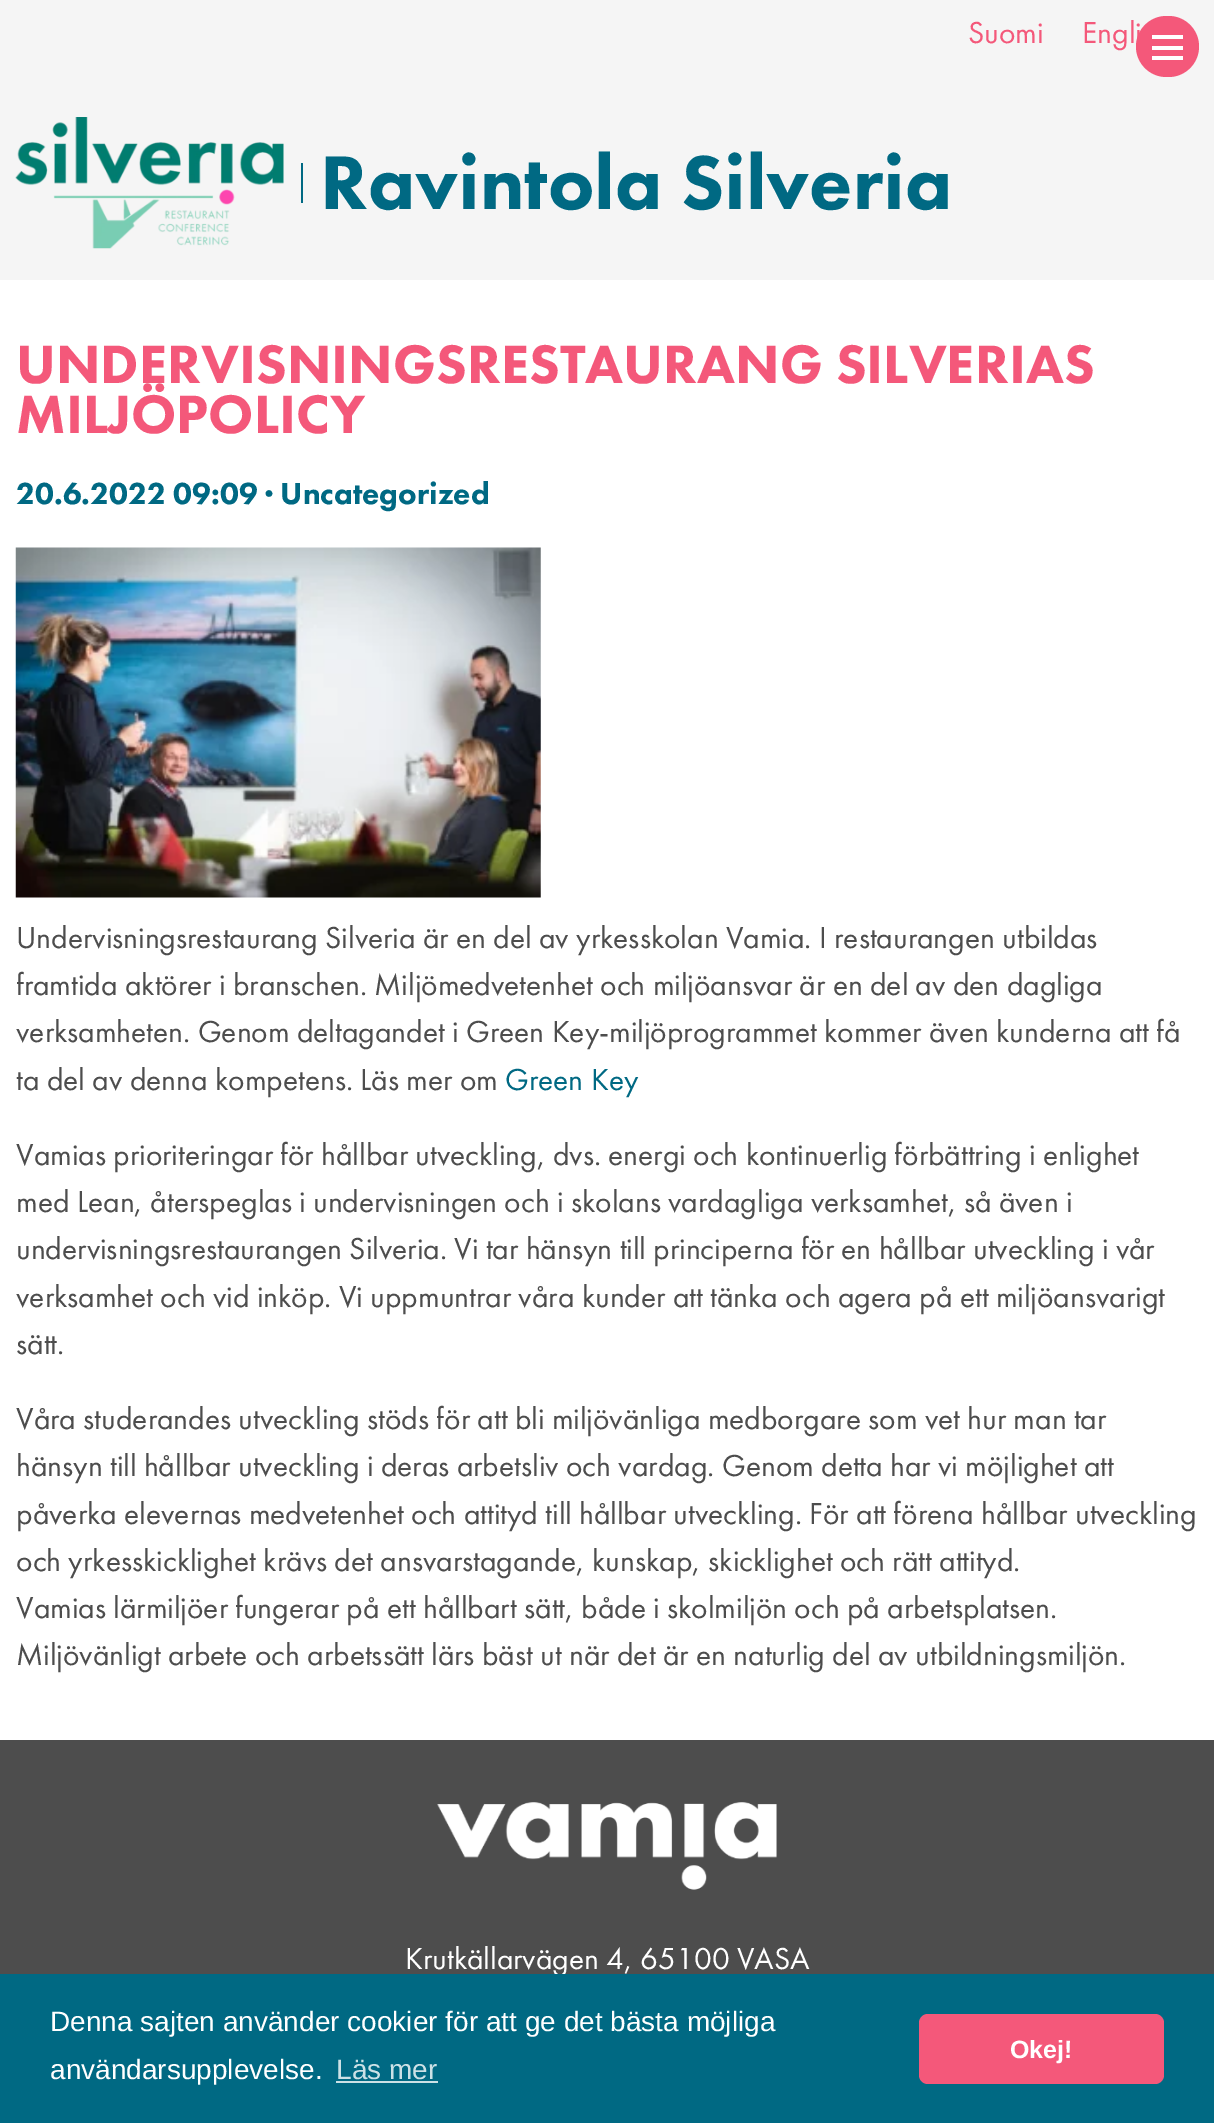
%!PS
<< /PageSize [1214 2123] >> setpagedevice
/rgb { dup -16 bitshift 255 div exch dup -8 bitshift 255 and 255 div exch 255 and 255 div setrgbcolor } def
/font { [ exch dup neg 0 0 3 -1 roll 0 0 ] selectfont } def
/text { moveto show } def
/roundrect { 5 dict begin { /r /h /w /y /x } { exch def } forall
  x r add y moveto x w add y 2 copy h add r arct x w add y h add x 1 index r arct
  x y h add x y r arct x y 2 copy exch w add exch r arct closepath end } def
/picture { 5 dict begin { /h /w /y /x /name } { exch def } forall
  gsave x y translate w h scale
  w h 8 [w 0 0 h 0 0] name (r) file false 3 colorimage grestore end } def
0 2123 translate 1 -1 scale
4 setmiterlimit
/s1 { /FuturaPT-Regular 31.5 font 16#F4587A rgb } def
/s2 { /FuturaPT-Black 78.75 font 16#006983 rgb } def
/s3 { /FuturaPT-Black 56 font 16#F4587A rgb } def
/s4 { /FuturaPT-Black 31.5 font 16#006983 rgb } def
/s5 { /FuturaPT-Regular 31.5 font 16#4D4D4D rgb } def
/s6 { /FuturaPT-Regular 31.5 font 16#006983 rgb } def
/s7 { /FuturaPT-Regular 31.5 font 16#FFFFFF rgb } def
/s8 { /LiberationSans-Regular 28 font 16#FFFFFF rgb } def
/s9 { /LiberationSans-Regular 28 font 16#CCE1E6 rgb } def
/s10 { /LiberationSans-Bold 25 font 16#FFFFFF rgb } def
16#4D4D4D rgb
0 0 1214 2123 rectfill
16#F5F5F5 rgb
0 0 1214 280 rectfill
s1
(Suomi) 968 43 text
(Engli) 1082 43 text
1136 16 63 61 30.5 roundrect fill
16#FFFFFF rgb
1152 35 31 4 rectfill
1152 46 31 4 rectfill
1152 56 31 4 rectfill
(pic1.raw) 15 117 269 132 picture
16#006983 rgb
301 163 2 40 rectfill
s2
(Ravintola Silveria) 320 209 text
16#FFFFFF rgb
0 280 1214 1460 rectfill
s3
(UNDERVISNINGSRESTAURANG SILVERIAS) 16 383 text
(MILJÖPOLICY) 16 433 text
s4
(20.6.2022 09:09 · Uncategorized) 16 504 text
(pic2.raw) 15 547 526 351 picture
s5
(Undervisningsrestaurang Silveria är en del av yrkesskolan Vamia. I restaurangen utbildas) 16 948 text
(framtida aktörer i branschen. Miljömedvetenhet och miljöansvar är en del av den dagliga) 16 995 text
(verksamheten. Genom deltagandet i Green Key-miljöprogrammet kommer även kunderna att få) 16 1042 text
(ta del av denna kompetens. Läs mer om) 16 1090 text
s6
(Green Key) 505 1090 text
s5
(Vamias prioriteringar för hållbar utveckling, dvs. energi och kontinuerlig förbättring i enlighet) 16 1165 text
(med Lean, återspeglas i undervisningen och i skolans vardagliga verksamhet, så även i) 16 1212 text
(undervisningsrestaurangen Silveria. Vi tar hänsyn till principerna för en hållbar utveckling i vår) 16 1259 text
(verksamhet och vid inköp. Vi uppmuntrar våra kunder att tänka och agera på ett miljöansvarigt) 16 1307 text
(sätt.) 16 1354 text
(Våra studerandes utveckling stöds för att bli miljövänliga medborgare som vet hur man tar) 16 1429 text
(hänsyn till hållbar utveckling i deras arbetsliv och vardag. Genom detta har vi möjlighet att) 16 1476 text
(påverka elevernas medvetenhet och attityd till hållbar utveckling. För att förena hållbar utveckling) 16 1524 text
(och yrkesskicklighet krävs det ansvarstagande, kunskap, skicklighet och rätt attityd.) 16 1571 text
(Vamias lärmiljöer fungerar på ett hållbart sätt, både i skolmiljön och på arbetsplatsen.) 16 1618 text
(Miljövänligt arbete och arbetssätt lärs bäst ut när det är en naturlig del av utbildningsmiljön.) 16 1665 text
(pic3.raw) 437 1802 340 88 picture
s7
(Krutkällarvägen 4, 65100 VASA) 405 1969 text
16#006983 rgb
0 1974 1214 149 rectfill
s8
(Denna sajten använder cookier för att ge det bästa möjliga) 50 2031 text
(användarsupplevelse.) 50 2079 text
s9
(Läs mer) 336 2079 text
336 2081 102 2 rectfill
16#F4587A rgb
919 2014 245 70 9 roundrect fill
s10
(Okej!) 1010 2058 text
showpage
